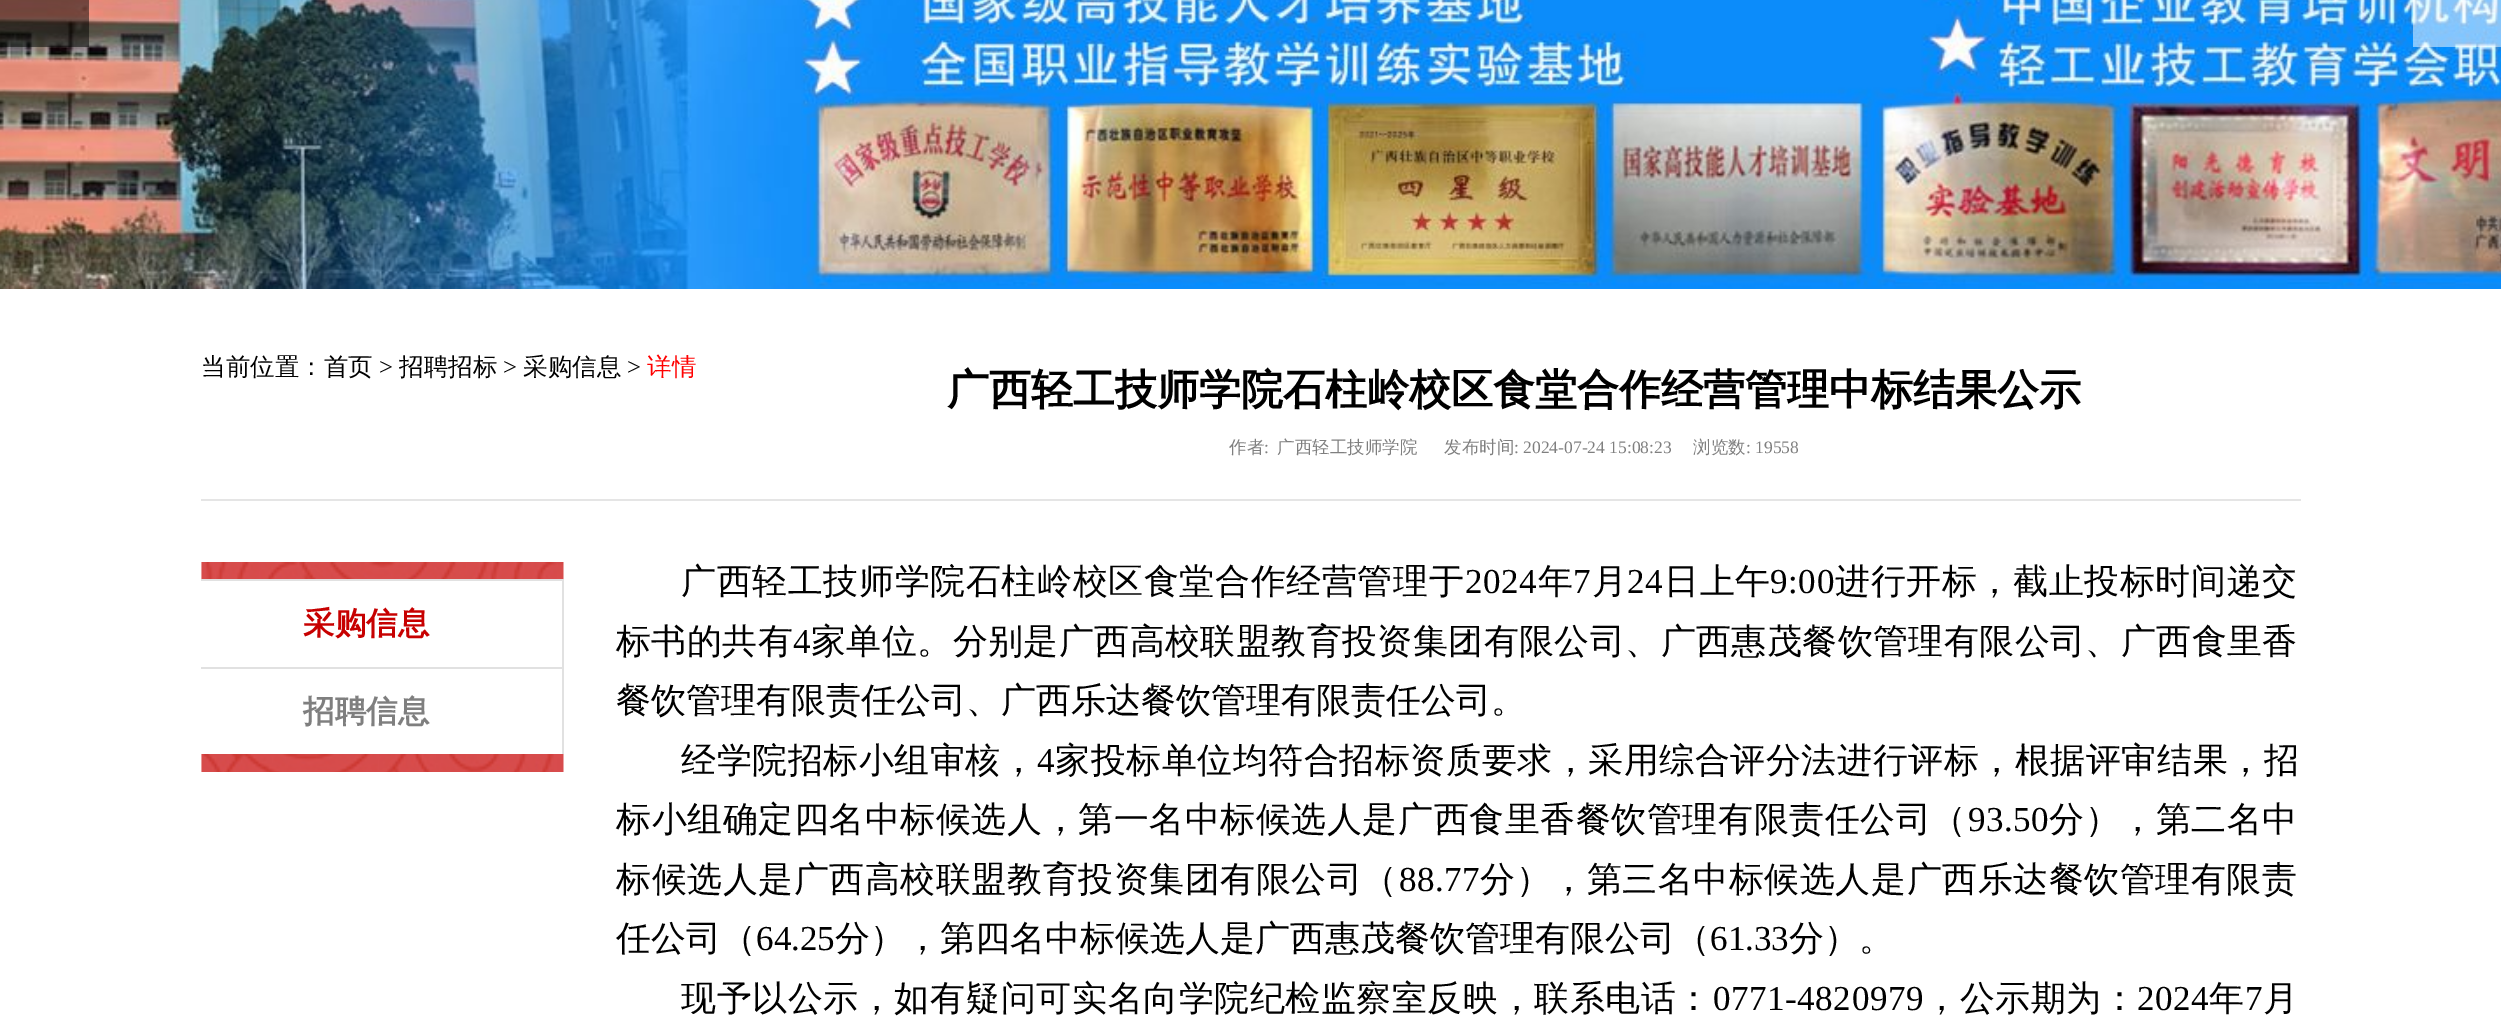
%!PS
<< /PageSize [2501 1017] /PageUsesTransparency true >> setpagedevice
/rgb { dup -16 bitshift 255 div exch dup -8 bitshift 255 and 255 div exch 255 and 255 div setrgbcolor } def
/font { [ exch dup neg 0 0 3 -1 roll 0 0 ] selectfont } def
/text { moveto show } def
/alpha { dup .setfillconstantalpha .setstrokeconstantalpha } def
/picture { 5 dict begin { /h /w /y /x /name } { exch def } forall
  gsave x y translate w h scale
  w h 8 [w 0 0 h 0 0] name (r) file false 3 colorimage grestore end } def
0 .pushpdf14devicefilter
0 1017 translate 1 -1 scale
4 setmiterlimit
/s1 { /WenQuanYiZenHei-Medium 24.5 font 16#000000 rgb } def
/s2 { /LiberationSerif-Regular 24.5 font 16#000000 rgb } def
/s3 { /WenQuanYiZenHei-Medium 24.5 font 16#FF0000 rgb } def
/s4 { /WenQuanYiZenHei-Bold 42 font 16#000000 rgb } def
/s5 { /WenQuanYiZenHei-Medium 17.5 font 16#7F7F7F rgb } def
/s6 { /LiberationSerif-Regular 17.5 font 16#7F7F7F rgb } def
/s7 { /WenQuanYiZenHei-Bold 31.5 font 16#C70000 rgb } def
/s8 { /WenQuanYiZenHei-Bold 31.5 font 16#7F7F7F rgb } def
/s9 { /WenQuanYiZenHei-Medium 35 font 16#000000 rgb } def
/s10 { /LiberationSerif-Regular 35 font 16#000000 rgb } def
16#FFFFFF rgb
0 0 2501 1017 rectfill
(pic1.raw) 0 0 2501 289 picture
0.5 alpha
16#000000 rgb
0 0 89 47 rectfill
16#FFFFFF rgb
2413 0 88 47 rectfill
1 alpha
16#E5E5E5 rgb
201 499 2100 2 rectfill
s1
(当前位置：首页) 201 375 text
s2
(>) 379 375 text
s1
(招聘招标) 399 375 text
s2
(>) 503 375 text
s1
(采购信息) 523 375 text
s2
(>) 627 375 text
s3
(详情) 647 375 text
s4
(广西轻工技师学院石柱岭校区食堂合作经营管理中标结果公示) 947 404 text
s5
(作者) 1229 453 text
s6
(:) 1264 453 text
s5
(广西轻工技师学院) 1277 453 text
(发布时间) 1444 453 text
s6
(: 2024-07-24 15:08:23) 1514 453 text
s5
(浏览数) 1693 453 text
s6
(: 19558) 1746 453 text
(pic2.raw) 201 562 363 210 picture
16#FFFFFF rgb
201 581 361 86 rectfill
16#E1E1E1 rgb
201 579 363 2 rectfill
562 579 2 88 rectfill
s7
(采购信息) 303 634 text
16#FFFFFF rgb
201 669 361 85 rectfill
16#E1E1E1 rgb
201 667 363 2 rectfill
562 667 2 87 rectfill
s8
(招聘信息) 303 722 text
/WenQuanYiZenHei-Medium 35 font
16#000000 rgb
681 593 moveto 0.6 0 (广西轻工技师学院石柱岭校区食堂合作经营管理于) ashow
/LiberationSerif-Regular 35 font
1465 593 moveto 0.6 0 (2024) ashow
/WenQuanYiZenHei-Medium 35 font
1538 593 moveto 0.6 0 (年) ashow
/LiberationSerif-Regular 35 font
1573 593 moveto 0.6 0 (7) ashow
/WenQuanYiZenHei-Medium 35 font
1592 593 moveto 0.6 0 (月) ashow
/LiberationSerif-Regular 35 font
1627 593 moveto 0.6 0 (24) ashow
/WenQuanYiZenHei-Medium 35 font
1664 593 moveto 0.6 0 (日上午) ashow
/LiberationSerif-Regular 35 font
1770 593 moveto 0.6 0 (9:00) ashow
/WenQuanYiZenHei-Medium 35 font
1835 593 moveto 0.6 0 (进行开标，截止投标时间递交) ashow
616 653 moveto 0.4 0 (标书的共有) ashow
/LiberationSerif-Regular 35 font
793 653 moveto 0.4 0 (4) ashow
/WenQuanYiZenHei-Medium 35 font
811 653 moveto 0.4 0 (家单位。分别是广西高校联盟教育投资集团有限公司、广西惠茂餐饮管理有限公司、广西食里香) ashow
(餐饮管理有限责任公司、广西乐达餐饮管理有限责任公司。) 616 712 text
681 772 moveto 0.55 0 (经学院招标小组审核，) ashow
/LiberationSerif-Regular 35 font
1037 772 moveto 0.55 0 (4) ashow
/WenQuanYiZenHei-Medium 35 font
1055 772 moveto 0.55 0 (家投标单位均符合招标资质要求，采用综合评分法进行评标，根据评审结果，招) ashow
616 831 moveto 0.55 0 (标小组确定四名中标候选人，第一名中标候选人是广西食里香餐饮管理有限责任公司（) ashow
/LiberationSerif-Regular 35 font
1968 831 moveto 0.55 0 (93.50) ashow
/WenQuanYiZenHei-Medium 35 font
2049 831 moveto 0.55 0 (分），第二名中) ashow
616 891 moveto 0.55 0 (标候选人是广西高校联盟教育投资集团有限公司（) ashow
/LiberationSerif-Regular 35 font
1399 891 moveto 0.55 0 (88.77) ashow
/WenQuanYiZenHei-Medium 35 font
1480 891 moveto 0.55 0 (分），第三名中标候选人是广西乐达餐饮管理有限责) ashow
(任公司（) 616 950 text
s10
(64.25) 756 950 text
s9
(分），第四名中标候选人是广西惠茂餐饮管理有限公司（) 835 950 text
s10
(61.33) 1710 950 text
s9
(分）。) 1789 950 text
681 1010 moveto 0.55 0 (现予以公示，如有疑问可实名向学院纪检监察室反映，联系电话：) ashow
/LiberationSerif-Regular 35 font
1713 1010 moveto 0.55 0 (0771-4820979) ashow
/WenQuanYiZenHei-Medium 35 font
1924 1010 moveto 0.55 0 (，公示期为：) ashow
/LiberationSerif-Regular 35 font
2137 1010 moveto 0.55 0 (2024) ashow
/WenQuanYiZenHei-Medium 35 font
2209 1010 moveto 0.55 0 (年) ashow
/LiberationSerif-Regular 35 font
2245 1010 moveto 0.55 0 (7) ashow
/WenQuanYiZenHei-Medium 35 font
2263 1010 moveto 0.55 0 (月) ashow
.poppdf14devicefilter showpage
